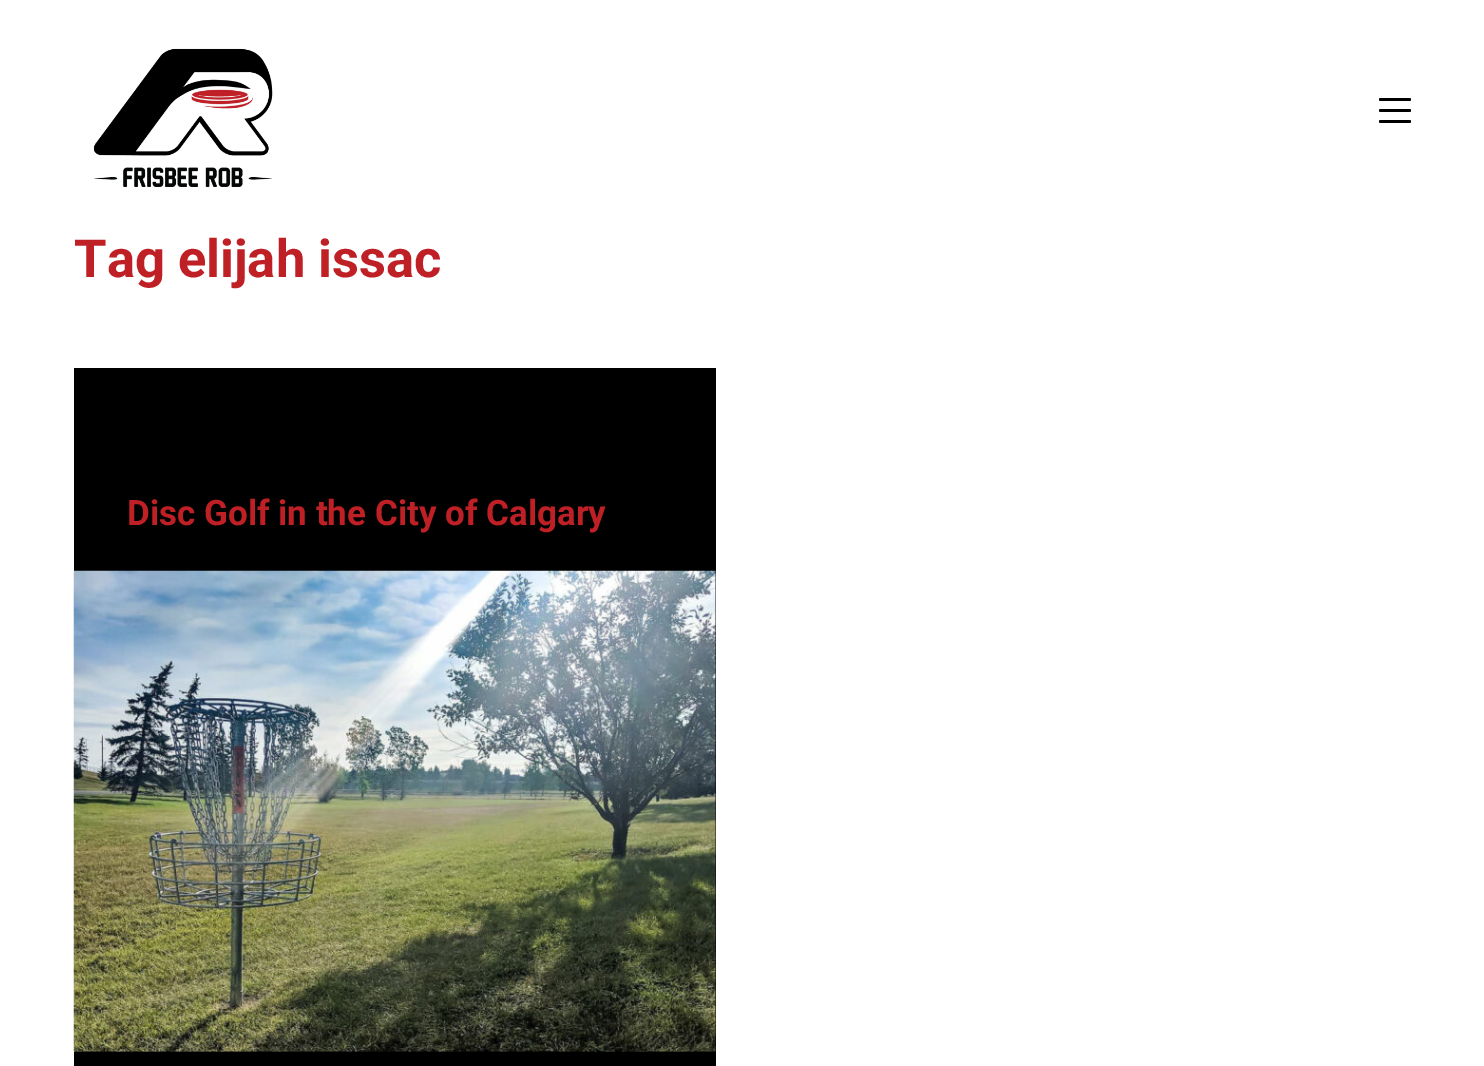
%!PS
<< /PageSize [1484 1066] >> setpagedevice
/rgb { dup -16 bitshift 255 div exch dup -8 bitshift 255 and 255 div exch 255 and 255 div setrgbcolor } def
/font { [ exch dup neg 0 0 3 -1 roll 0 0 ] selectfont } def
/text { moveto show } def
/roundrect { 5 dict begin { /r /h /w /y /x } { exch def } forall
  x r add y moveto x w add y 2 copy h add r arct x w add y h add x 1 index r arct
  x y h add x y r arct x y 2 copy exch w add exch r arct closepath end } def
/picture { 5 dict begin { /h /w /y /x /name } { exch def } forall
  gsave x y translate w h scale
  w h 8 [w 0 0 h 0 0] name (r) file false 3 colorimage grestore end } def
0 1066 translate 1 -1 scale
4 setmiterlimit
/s1 { /Roboto-Bold 52.5 font 16#BF2026 rgb } def
/s2 { /Roboto-Bold 35 font 16#BF2026 rgb } def
16#FFFFFF rgb
0 0 1484 1066 rectfill
(pic1.raw) 93 48 180 139 picture
16#000000 rgb
1379 98 32 3 1.5 roundrect fill
1379 109 32 3 1.5 roundrect fill
1379 120 32 3 1.5 roundrect fill
s1
(Tag elijah issac) 74 277 text
16#000000 rgb
74 368 642 698 rectfill
s2
(Disc Golf in the City of Calgary) 127 525 text
(pic2.raw) 73 570 643 482 picture
showpage
